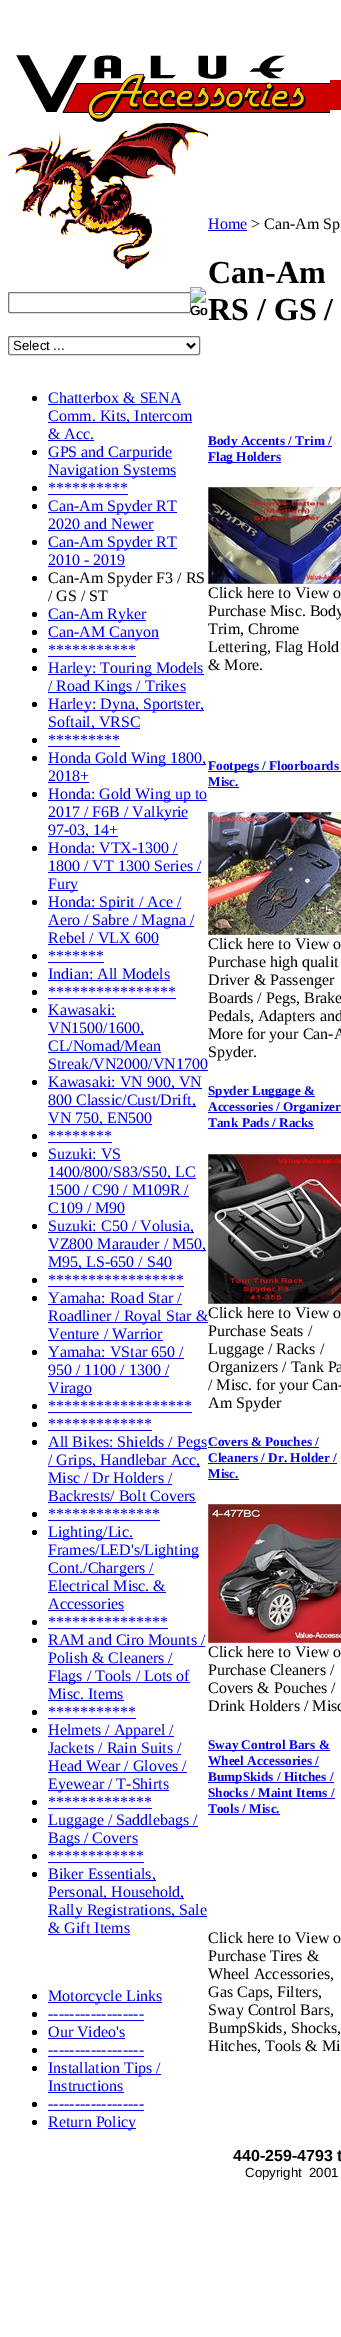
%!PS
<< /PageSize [341 2337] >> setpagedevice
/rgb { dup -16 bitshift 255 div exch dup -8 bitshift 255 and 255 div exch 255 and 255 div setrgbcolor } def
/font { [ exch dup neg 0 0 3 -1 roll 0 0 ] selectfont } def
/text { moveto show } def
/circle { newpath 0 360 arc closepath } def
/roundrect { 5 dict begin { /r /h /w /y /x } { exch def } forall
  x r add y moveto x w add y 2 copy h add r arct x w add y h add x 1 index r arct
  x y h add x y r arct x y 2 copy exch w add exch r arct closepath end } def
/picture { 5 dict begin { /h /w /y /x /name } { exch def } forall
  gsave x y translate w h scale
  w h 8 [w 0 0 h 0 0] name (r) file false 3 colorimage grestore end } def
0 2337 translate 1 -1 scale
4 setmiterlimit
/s1 { /LiberationSans-Regular 13.25 font 16#000000 rgb } def
/s2 { /LiberationSerif-Regular 16 font 16#0000EE rgb } def
/s3 { /LiberationSerif-Regular 16 font 16#000000 rgb } def
/s4 { /LiberationSerif-Bold 32 font 16#000000 rgb } def
/s5 { /LiberationSerif-Bold 13.25 font 16#0000EE rgb } def
/s6 { /LiberationSans-Bold 16 font 16#000000 rgb } def
16#FFFFFF rgb
0 0 341 2337 rectfill
16#CE0000 rgb
330 80 11 30 rectfill
(pic1.raw) 8 55 322 67 picture
(pic2.raw) 8 123 200 146 picture
16#767676 rgb
8.5 292.5 182 20 1.5 roundrect stroke
(pic3.raw) 190 287 18 28 picture
s1
(Go) 190 315 text
16#767676 rgb
8.5 336.5 191 18 1.5 roundrect stroke
16#000000 rgb
2 setlinewidth
187 343.5 moveto 191 347.5 lineto 195 343.5 lineto stroke
(Select ...) 13 350 text
34.5 398.5 2.5 circle fill
s2
(Chatterbox & SENA) 48 403 text
48 404 133 1 rectfill
48 422 144 1 rectfill
(Comm. Kits, Intercom) 48 421 text
(& Acc.) 48 439 text
48 440 46 1 rectfill
16#000000 rgb
34.5 452.5 2.5 circle fill
16#0000EE rgb
48 458 124 1 rectfill
(GPS and Carpuride) 48 457 text
48 476 128 1 rectfill
(Navigation Systems) 48 475 text
16#000000 rgb
34.5 488.5 2.5 circle fill
s2
(**********) 48 493 text
48 494 80 1 rectfill
16#000000 rgb
34.5 506.5 2.5 circle fill
16#0000EE rgb
48 512 129 1 rectfill
(Can-Am Spyder RT) 48 511 text
(2020 and Newer) 48 529 text
48 530 106 1 rectfill
16#000000 rgb
34.5 542.5 2.5 circle fill
16#0000EE rgb
48 548 129 1 rectfill
(Can-Am Spyder RT) 48 547 text
(2010 - 2019) 48 565 text
48 566 77 1 rectfill
16#000000 rgb
34.5 578.5 2.5 circle fill
(Can-Am Spyder F3 / RS) 48 583 text
(/ GS / ST) 48 601 text
34.5 614.5 2.5 circle fill
16#0000EE rgb
48 620 98 1 rectfill
(Can-Am Ryker) 48 619 text
16#000000 rgb
34.5 632.5 2.5 circle fill
16#0000EE rgb
48 638 111 1 rectfill
(Can-AM Canyon) 48 637 text
16#000000 rgb
34.5 650.5 2.5 circle fill
s2
(***********) 48 655 text
48 656 88 1 rectfill
16#000000 rgb
34.5 668.5 2.5 circle fill
16#0000EE rgb
48 674 156 1 rectfill
(Harley: Touring Models) 48 673 text
48 692 138 1 rectfill
(/ Road Kings / Trikes) 48 691 text
16#000000 rgb
34.5 704.5 2.5 circle fill
16#0000EE rgb
48 710 156 1 rectfill
(Harley: Dyna, Sportster,) 48 709 text
48 728 92 1 rectfill
(Softail, VRSC) 48 727 text
16#000000 rgb
34.5 740.5 2.5 circle fill
s2
(*********) 48 745 text
48 746 72 1 rectfill
16#000000 rgb
34.5 758.5 2.5 circle fill
16#0000EE rgb
48 764 158 1 rectfill
(Honda Gold Wing 1800,) 48 763 text
(2018+) 48 781 text
48 782 41 1 rectfill
16#000000 rgb
34.5 794.5 2.5 circle fill
16#0000EE rgb
48 800 159 1 rectfill
(Honda: Gold Wing up to) 48 799 text
48 818 140 1 rectfill
(2017 / F6B / Valkyrie) 48 817 text
48 836 70 1 rectfill
(97-03, 14+) 48 835 text
16#000000 rgb
34.5 848.5 2.5 circle fill
s2
(Honda: VTX-1300 /) 48 853 text
48 854 130 1 rectfill
(1800 / VT 1300 Series /) 48 871 text
48 872 153 1 rectfill
48 890 30 1 rectfill
(Fury) 48 889 text
16#000000 rgb
34.5 902.5 2.5 circle fill
16#0000EE rgb
48 908 133 1 rectfill
(Honda: Spirit / Ace /) 48 907 text
48 926 146 1 rectfill
(Aero / Sabre / Magna /) 48 925 text
(Rebel / VLX 600) 48 943 text
48 944 111 1 rectfill
16#000000 rgb
34.5 956.5 2.5 circle fill
s2
(*******) 48 961 text
48 962 56 1 rectfill
16#000000 rgb
34.5 974.5 2.5 circle fill
s2
(Indian: All Models) 48 979 text
48 980 122 1 rectfill
16#000000 rgb
34.5 992.5 2.5 circle fill
s2
(****************) 48 997 text
48 998 128 1 rectfill
16#000000 rgb
34.5 1010.5 2.5 circle fill
s2
(Kawasaki:) 48 1015 text
48 1016 68 1 rectfill
48 1034 96 1 rectfill
(VN1500/1600,) 48 1033 text
(CL/Nomad/Mean) 48 1051 text
48 1052 113 1 rectfill
(Streak/VN2000/VN1700) 48 1069 text
48 1070 160 1 rectfill
16#000000 rgb
34.5 1082.5 2.5 circle fill
16#0000EE rgb
48 1088 154 1 rectfill
(Kawasaki: VN 900, VN) 48 1087 text
48 1106 148 1 rectfill
(800 Classic/Cust/Drift,) 48 1105 text
48 1124 104 1 rectfill
(VN 750, EN500) 48 1123 text
16#000000 rgb
34.5 1136.5 2.5 circle fill
s2
(********) 48 1141 text
48 1142 64 1 rectfill
16#000000 rgb
34.5 1154.5 2.5 circle fill
s2
(Suzuki: VS) 48 1159 text
48 1160 73 1 rectfill
48 1178 148 1 rectfill
(1400/800/S83/S50, LC) 48 1177 text
(1500 / C90 / M109R /) 48 1195 text
48 1196 141 1 rectfill
(C109 / M90) 48 1213 text
48 1214 77 1 rectfill
16#000000 rgb
34.5 1226.5 2.5 circle fill
16#0000EE rgb
48 1232 146 1 rectfill
(Suzuki: C50 / Volusia,) 48 1231 text
48 1250 158 1 rectfill
(VZ800 Marauder / M50,) 48 1249 text
48 1268 124 1 rectfill
(M95, LS-650 / S40) 48 1267 text
16#000000 rgb
34.5 1280.5 2.5 circle fill
s2
(*****************) 48 1285 text
48 1286 136 1 rectfill
16#000000 rgb
34.5 1298.5 2.5 circle fill
s2
(Yamaha: Road Star /) 48 1303 text
48 1304 134 1 rectfill
48 1322 160 1 rectfill
(Roadliner / Royal Star &) 48 1321 text
(Venture / Warrior) 48 1339 text
48 1340 115 1 rectfill
16#000000 rgb
34.5 1352.5 2.5 circle fill
s2
(Yamaha: VStar 650 /) 48 1357 text
48 1358 136 1 rectfill
(950 / 1100 / 1300 /) 48 1375 text
48 1376 121 1 rectfill
48 1394 44 1 rectfill
(Virago) 48 1393 text
16#000000 rgb
34.5 1406.5 2.5 circle fill
s2
(******************) 48 1411 text
48 1412 144 1 rectfill
16#000000 rgb
34.5 1424.5 2.5 circle fill
s2
(*************) 48 1429 text
48 1430 104 1 rectfill
16#000000 rgb
34.5 1442.5 2.5 circle fill
16#0000EE rgb
48 1448 159 1 rectfill
(All Bikes: Shields / Pegs) 48 1447 text
48 1466 152 1 rectfill
(/ Grips, Handlebar Acc,) 48 1465 text
(Misc / Dr Holders /) 48 1483 text
48 1484 124 1 rectfill
(Backrests/ Bolt Covers) 48 1501 text
48 1502 148 1 rectfill
16#000000 rgb
34.5 1514.5 2.5 circle fill
s2
(**************) 48 1519 text
48 1520 112 1 rectfill
16#000000 rgb
34.5 1532.5 2.5 circle fill
16#0000EE rgb
48 1538 85 1 rectfill
(Lighting/Lic.) 48 1537 text
48 1556 151 1 rectfill
(Frames/LED's/Lighting) 48 1555 text
48 1574 106 1 rectfill
(Cont./Chargers /) 48 1573 text
(Electrical Misc. &) 48 1591 text
48 1592 118 1 rectfill
(Accessories) 48 1609 text
48 1610 76 1 rectfill
16#000000 rgb
34.5 1622.5 2.5 circle fill
s2
(***************) 48 1627 text
48 1628 120 1 rectfill
16#000000 rgb
34.5 1640.5 2.5 circle fill
s2
(RAM and Ciro Mounts /) 48 1645 text
48 1646 157 1 rectfill
(Polish & Cleaners /) 48 1663 text
48 1664 125 1 rectfill
48 1682 142 1 rectfill
(Flags / Tools / Lots of) 48 1681 text
(Misc. Items) 48 1699 text
48 1700 76 1 rectfill
16#000000 rgb
34.5 1712.5 2.5 circle fill
s2
(***********) 48 1717 text
48 1718 88 1 rectfill
16#000000 rgb
34.5 1730.5 2.5 circle fill
16#0000EE rgb
48 1736 126 1 rectfill
(Helmets / Apparel /) 48 1735 text
(Jackets / Rain Suits /) 48 1753 text
48 1754 133 1 rectfill
(Head Wear / Gloves /) 48 1771 text
48 1772 139 1 rectfill
48 1790 121 1 rectfill
(Eyewear / T-Shirts) 48 1789 text
16#000000 rgb
34.5 1802.5 2.5 circle fill
s2
(*************) 48 1807 text
48 1808 104 1 rectfill
16#000000 rgb
34.5 1820.5 2.5 circle fill
16#0000EE rgb
48 1826 150 1 rectfill
(Luggage / Saddlebags /) 48 1825 text
48 1844 90 1 rectfill
(Bags / Covers) 48 1843 text
16#000000 rgb
34.5 1856.5 2.5 circle fill
s2
(************) 48 1861 text
48 1862 96 1 rectfill
16#000000 rgb
34.5 1874.5 2.5 circle fill
16#0000EE rgb
48 1880 108 1 rectfill
(Biker Essentials,) 48 1879 text
48 1898 136 1 rectfill
(Personal, Household,) 48 1897 text
48 1916 159 1 rectfill
(Rally Registrations, Sale) 48 1915 text
(& Gift Items) 48 1933 text
48 1934 82 1 rectfill
16#000000 rgb
34.5 1996.5 2.5 circle fill
16#0000EE rgb
48 2002 114 1 rectfill
(Motorcycle Links) 48 2001 text
16#000000 rgb
34.5 2014.5 2.5 circle fill
s2
(------------------) 48 2019 text
48 2020 96 1 rectfill
16#000000 rgb
34.5 2032.5 2.5 circle fill
s2
(Our Video's) 48 2037 text
48 2038 77 1 rectfill
16#000000 rgb
34.5 2050.5 2.5 circle fill
s2
(------------------) 48 2055 text
48 2056 96 1 rectfill
16#000000 rgb
34.5 2068.5 2.5 circle fill
16#0000EE rgb
48 2074 113 1 rectfill
(Installation Tips /) 48 2073 text
(Instructions) 48 2091 text
48 2092 76 1 rectfill
16#000000 rgb
34.5 2104.5 2.5 circle fill
s2
(------------------) 48 2109 text
48 2110 96 1 rectfill
16#000000 rgb
34.5 2122.5 2.5 circle fill
16#0000EE rgb
48 2128 88 1 rectfill
(Return Policy) 48 2127 text
(Home) 208 229 text
208 230 39 1 rectfill
s3
(> Can-Am Sp) 251 229 text
s4
(Can-Am) 208 283 text
(RS / GS /) 208 320 text
16#0000EE rgb
208 446 124 1 rectfill
s5
(Body Accents / Trim /) 208 445 text
208 462 73 1 rectfill
(Flag Holders) 208 461 text
(pic4.raw) 208 487 133 97 picture
s3
(Click here to View o) 208 598 text
(Purchase Misc. Body) 208 616 text
(Trim, Chrome) 208 634 text
(Lettering, Flag Hold) 208 652 text
(& More.) 208 670 text
16#0000EE rgb
208 771 133 1 rectfill
s5
(Footpegs / Floorboards) 208 770 text
(Misc.) 208 786 text
208 787 31 1 rectfill
(pic5.raw) 208 812 133 123 picture
s3
(Click here to View o) 208 949 text
(Purchase high qualit) 208 967 text
(Driver & Passenger) 208 985 text
(Boards / Pegs, Brake) 208 1003 text
(Pedals, Adapters and) 208 1021 text
(More for your Can-A) 208 1039 text
(Spyder.) 208 1057 text
16#0000EE rgb
208 1096 107 1 rectfill
s5
(Spyder Luggage &) 208 1095 text
208 1112 133 1 rectfill
(Accessories / Organizer) 208 1111 text
(Tank Pads / Racks) 208 1127 text
208 1128 106 1 rectfill
(pic6.raw) 208 1154 133 150 picture
s3
(Click here to View o) 208 1318 text
(Purchase Seats /) 208 1336 text
(Luggage / Racks /) 208 1354 text
(Organizers / Tank Pa) 208 1372 text
(/ Misc. for your Can-) 208 1390 text
(Am Spyder) 208 1408 text
s5
(Covers & Pouches /) 208 1446 text
208 1447 111 1 rectfill
(Cleaners / Dr. Holder /) 208 1462 text
208 1463 129 1 rectfill
(Misc.) 208 1478 text
208 1479 31 1 rectfill
(pic7.raw) 208 1504 133 139 picture
s3
(Click here to View o) 208 1657 text
(Purchase Cleaners /) 208 1675 text
(Covers & Pouches /) 208 1693 text
(Drink Holders / Misc) 208 1711 text
16#0000EE rgb
208 1750 122 1 rectfill
s5
(Sway Control Bars &) 208 1749 text
(Wheel Accessories /) 208 1765 text
208 1766 111 1 rectfill
208 1782 126 1 rectfill
(BumpSkids / Hitches /) 208 1781 text
(Shocks / Maint Items /) 208 1797 text
208 1798 127 1 rectfill
(Tools / Misc.) 208 1813 text
208 1814 72 1 rectfill
s3
(Click here to View o) 208 1943 text
(Purchase Tires &) 208 1961 text
(Wheel Accessories,) 208 1979 text
(Gas Caps, Filters,) 208 1997 text
(Sway Control Bars,) 208 2015 text
(BumpSkids, Shocks,) 208 2033 text
(Hitches, Tools & Mi) 208 2051 text
s6
(440-259-4793 t) 233 2161 text
s1
(Copyright  2001) 245 2177 text
showpage
